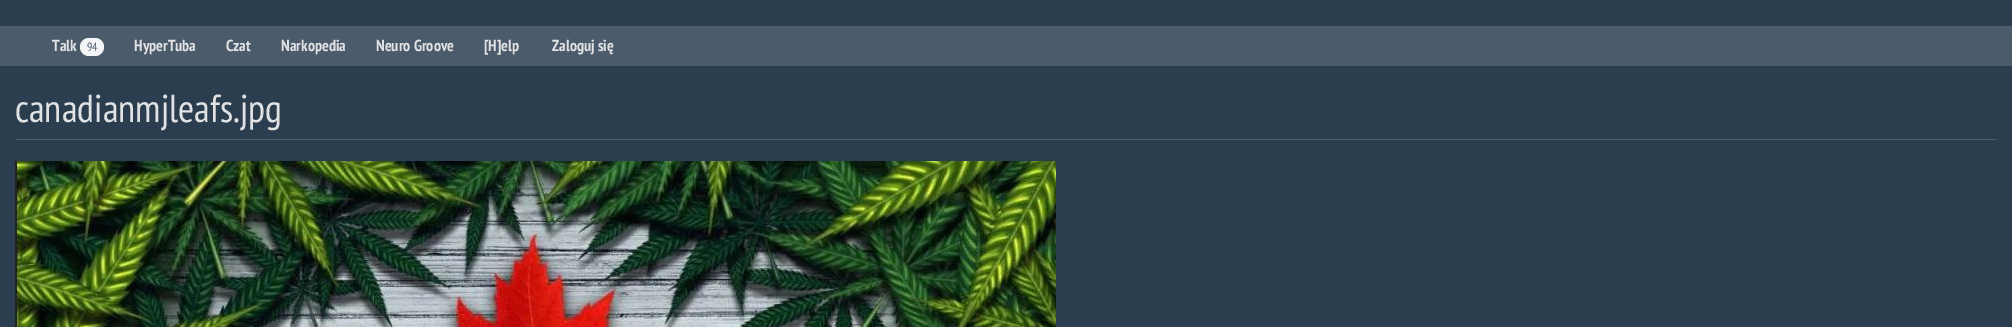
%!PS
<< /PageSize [2012 327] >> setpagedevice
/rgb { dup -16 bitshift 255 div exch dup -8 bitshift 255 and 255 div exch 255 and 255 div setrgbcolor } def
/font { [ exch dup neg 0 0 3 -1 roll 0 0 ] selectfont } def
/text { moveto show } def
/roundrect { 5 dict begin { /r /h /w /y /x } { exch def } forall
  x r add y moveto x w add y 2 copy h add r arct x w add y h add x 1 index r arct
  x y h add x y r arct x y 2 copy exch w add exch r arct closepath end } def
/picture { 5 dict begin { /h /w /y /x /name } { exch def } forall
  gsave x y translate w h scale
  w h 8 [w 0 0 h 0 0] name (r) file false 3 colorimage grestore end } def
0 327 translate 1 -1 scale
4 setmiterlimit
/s1 { /PTSansNarrow-Bold 16 font 16#E1E2E3 rgb } def
/s2 { /PTSansNarrow-Regular 12 font 16#4C5B6B rgb } def
/s3 { /PTSansNarrow-Regular 39 font 16#E1E2E3 rgb } def
16#2B3E50 rgb
0 0 2012 327 rectfill
16#4C5B6B rgb
0 26 2012 40 rectfill
s1
(Talk) 52 51 text
16#F4F5F6 rgb
80 38 24 18 9 roundrect fill
s2
(94) 87 51 text
s1
(HyperTuba) 134 51 text
(Czat) 226 51 text
(Narkopedia) 281 51 text
(Neuro Groove) 376 51 text
([H]elp) 484 51 text
(Zaloguj się) 552 51 text
16#4C5B6B rgb
15 139 1982 1 rectfill
s3
(canadianmjleafs.jpg) 15 122 text
(pic1.raw) 15 161 1041 166 picture
showpage
